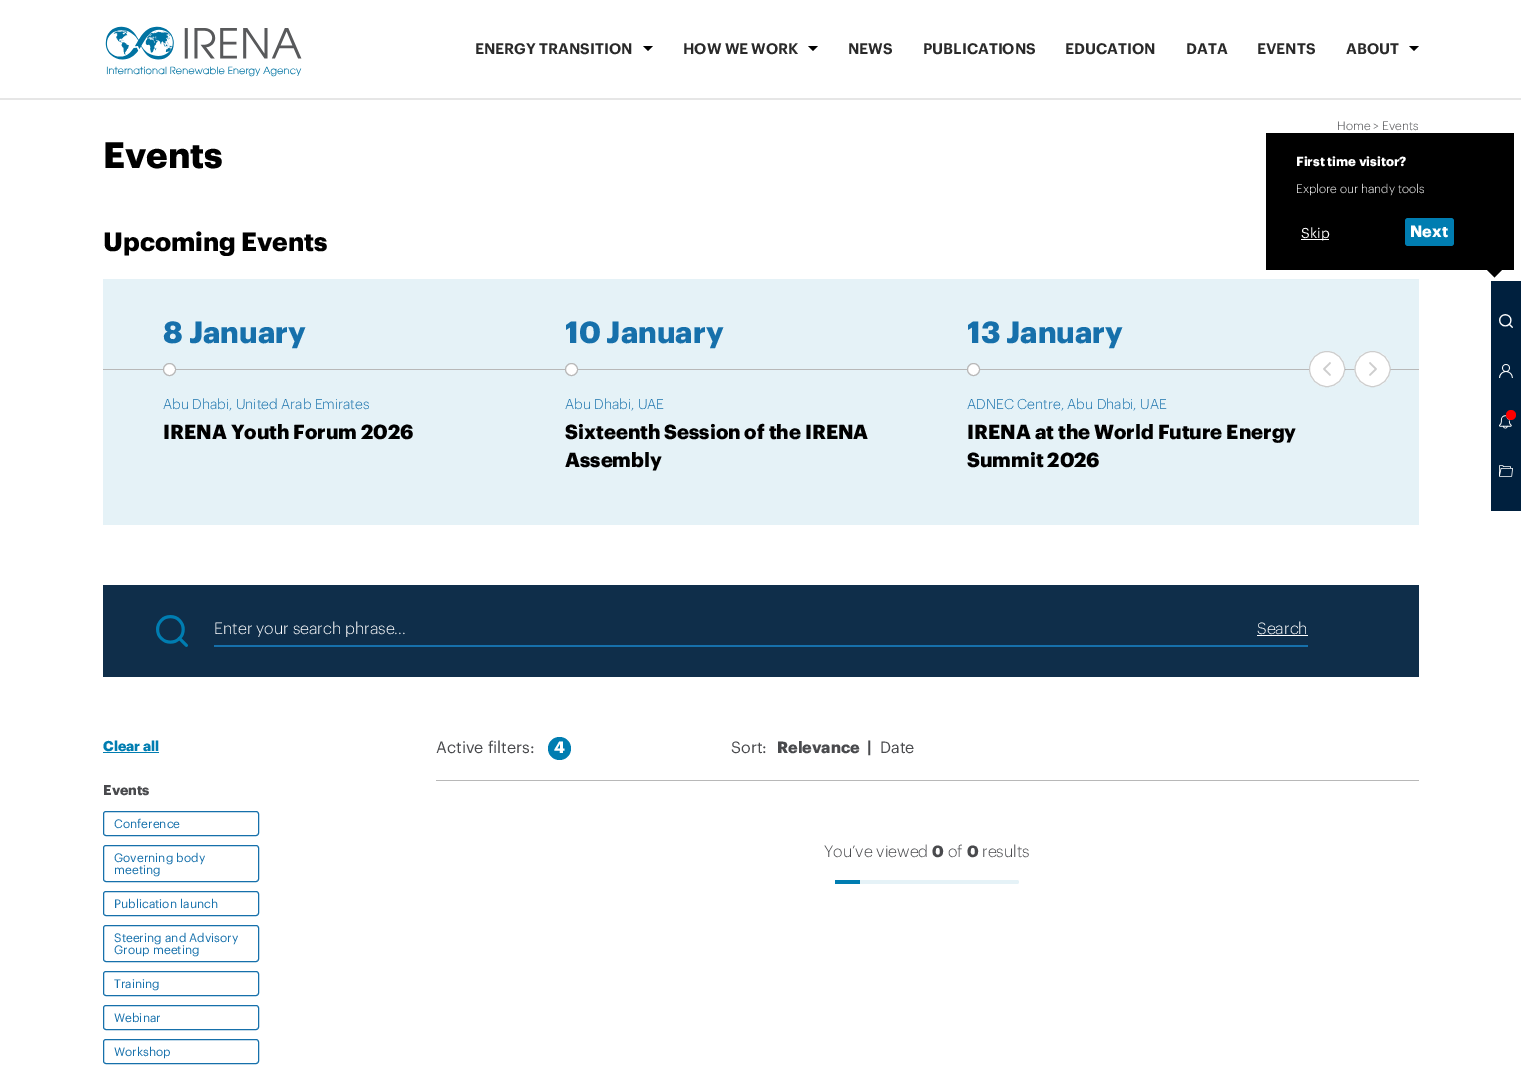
%!PS
<< /PageSize [1521 1081] /PageUsesTransparency true >> setpagedevice
/rgb { dup -16 bitshift 255 div exch dup -8 bitshift 255 and 255 div exch 255 and 255 div setrgbcolor } def
/font { [ exch dup neg 0 0 3 -1 roll 0 0 ] selectfont } def
/text { moveto show } def
/alpha { dup .setfillconstantalpha .setstrokeconstantalpha } def
/circle { newpath 0 360 arc closepath } def
/roundrect { 5 dict begin { /r /h /w /y /x } { exch def } forall
  x r add y moveto x w add y 2 copy h add r arct x w add y h add x 1 index r arct
  x y h add x y r arct x y 2 copy exch w add exch r arct closepath end } def
/picture { 5 dict begin { /h /w /y /x /name } { exch def } forall
  gsave x y translate w h scale
  w h 8 [w 0 0 h 0 0] name (r) file false 3 colorimage grestore end } def
0 .pushpdf14devicefilter
0 1081 translate 1 -1 scale
4 setmiterlimit
/s1 { /Graphik-SemiBold 15 font 16#2A2A2A rgb } def
/s2 { /Graphik-Light 12 font 16#494A4D rgb } def
/s3 { /Graphik-Bold 36 font 16#000000 rgb } def
/s4 { /Graphik-Bold 26 font 16#000000 rgb } def
/s5 { /Graphik-Bold 30 font 16#1670AB rgb } def
/s6 { /Graphik-Light 14 font 16#1670AB rgb } def
/s7 { /Graphik-Bold 20 font 16#000000 rgb } def
/s8 { /Graphik-Bold 13 font 16#FFFFFF rgb } def
/s9 { /Graphik-Light 12 font 16#FFFFFF rgb } def
/s10 { /Graphik-Regular 14 font 16#FFFFFF rgb } def
/s11 { /Graphik-Bold 16 font 16#FFFFFF rgb } def
/s12 { /Graphik-Light 16 font 16#FFFFFF rgb } def
/s13 { /Graphik-Bold 14 font 16#007DB1 rgb } def
/s14 { /Graphik-Bold 14 font 16#494A4D rgb } def
/s15 { /Graphik-Regular 12 font 16#1670AB rgb } def
/s16 { /Graphik-Regular 16 font 16#494A4D rgb } def
/s17 { /Graphik-Bold 16 font 16#494A4D rgb } def
/s18 { /Graphik-Light 16 font 16#494A4D rgb } def
16#FFFFFF rgb
0 0 1521 1081 rectfill
(pic1.raw) 105 26 197 51 picture
s1
(ENERGY TRANSITION) 475 54 text
16#000000 rgb
643 46 moveto 653 46 lineto 648 51 lineto closepath fill
s1
(HOW WE WORK) 683 54 text
16#000000 rgb
808 46 moveto 818 46 lineto 813 51 lineto closepath fill
s1
(NEWS) 848 54 text
(PUBLICATIONS) 923 54 text
(EDUCATION) 1065 54 text
(DATA) 1186 54 text
(EVENTS) 1257 54 text
(ABOUT) 1346 54 text
16#000000 rgb
1409 46 moveto 1419 46 lineto 1414 51 lineto closepath fill
16#E6E6E6 rgb
0 98 1521 2 rectfill
s2
(Home > Events) 1337 130 text
s3
(Events) 103 168 text
s4
(Upcoming Events) 103 251 text
16#E5F2F7 rgb
103 279 1316 246 rectfill
s5
(8 January) 163 343 text
16#B8B8B8 rgb
103 369 1316 1 rectfill
16#FFFFFF rgb
169.5 369.5 6 circle gsave fill grestore
16#B8B8B8 rgb
stroke
s6
(Abu Dhabi, United Arab Emirates) 163 409 text
s7
(IRENA Youth Forum 2026) 163 439 text
s5
(10 January) 565 343 text
16#FFFFFF rgb
571.5 369.5 6 circle gsave fill grestore
16#B8B8B8 rgb
stroke
s6
(Abu Dhabi, UAE) 565 409 text
s7
(Sixteenth Session of the IRENA) 565 439 text
(Assembly) 565 467 text
s5
(13 January) 967 343 text
16#FFFFFF rgb
973.5 369.5 6 circle gsave fill grestore
16#B8B8B8 rgb
stroke
s6
(ADNEC Centre, Abu Dhabi, UAE) 967 409 text
s7
(IRENA at the World Future Energy) 967 439 text
(Summit 2026) 967 467 text
16#FFFFFF rgb
1327 369 18 circle fill
0.35 alpha
16#707070 rgb
1327 369 17.5 circle stroke
1 alpha
(pic2.raw) 1323 362 8 14 picture
16#FFFFFF rgb
1372.5 387 moveto 1362.5 387 1354.5 379 1354.5 369 curveto 1354.5 359 1362.5 351 1372.5 351 curveto 1382.5 351 1390.5 359 1390.5 369 curveto 1390.5 379 1382.5 387 1372.5 387 curveto closepath fill
0.35 alpha
16#707070 rgb
1372.5 386.5 moveto 1363 386.5 1355 378.5 1355 369 curveto 1355 359.5 1363 351.5 1372.5 351.5 curveto 1382 351.5 1390 359.5 1390 369 curveto 1390 378.5 1382 386.5 1372.5 386.5 curveto closepath stroke
1 alpha
(pic3.raw) 1369 362 8 14 picture
16#00203E rgb
1491 281 30 230 rectfill
16#000000 rgb
1266 133 248 137 rectfill
s8
(First time visitor?) 1296 166 text
s9
(Explore our handy tools) 1296 193 text
1301 239 28 1 rectfill
s10
(Skip) 1301 238 text
16#007DB1 rgb
1405 218 49 28 3 roundrect fill
s11
(Next) 1410 237 text
16#000000 rgb
1486.5 269.5 moveto 1502.5 269.5 lineto 1494.5 277.5 lineto closepath fill
(pic4.raw) 1499 314 14 14 picture
(pic5.raw) 1499 364 14 14 picture
(pic6.raw) 1499 415 13 14 picture
16#FF0000 rgb
1511 415 5 circle fill
(pic7.raw) 1499 465 14 12 picture
16#0F2E4A rgb
103 585 1316 92 rectfill
(pic8.raw) 156 615 32 32 picture
16#1670AB rgb
214 645 1094 2 rectfill
s12
(Enter your search phrase...) 214 634 text
(Search) 1257 634 text
1257 635 51 1 rectfill
s13
(Clear all) 103 751 text
103 752 56 1 rectfill
s14
(Events) 103 795 text
16#1670AB rgb
103.5 811.5 155 24 2.5 roundrect stroke
s15
(Conference) 114 828 text
103.5 845.5 155 36 2.5 roundrect stroke
(Governing body) 114 862 text
(meeting) 114 874 text
103.5 891.5 155 24 2.5 roundrect stroke
(Publication launch) 114 908 text
103.5 925.5 155 36 2.5 roundrect stroke
(Steering and Advisory) 114 942 text
(Group meeting) 114 954 text
103.5 971.5 155 24 2.5 roundrect stroke
(Training) 114 988 text
103.5 1005.5 155 24 2.5 roundrect stroke
(Webinar) 114 1022 text
103.5 1039.5 155 24 2.5 roundrect stroke
(Workshop) 114 1056 text
16#B8B8B8 rgb
436 780 983 1 rectfill
s16
(Active filters:) 436 753 text
16#007DB1 rgb
559.5 748.5 11.5 circle fill
s11
(4) 554 753 text
s16
(Sort:) 731 753 text
s17
(Relevance) 777 753 text
(|) 867 753 text
s16
(Date) 880 753 text
s18
(You’ve viewed) 824 857 text
s17
(0) 932 857 text
s18
(of) 948 857 text
s17
(0) 967 857 text
s18
(results) 982 857 text
16#E5F2F7 rgb
835 880 184 4 2 roundrect fill
16#007DB1 rgb
835 880 25 4 rectfill
.poppdf14devicefilter showpage
